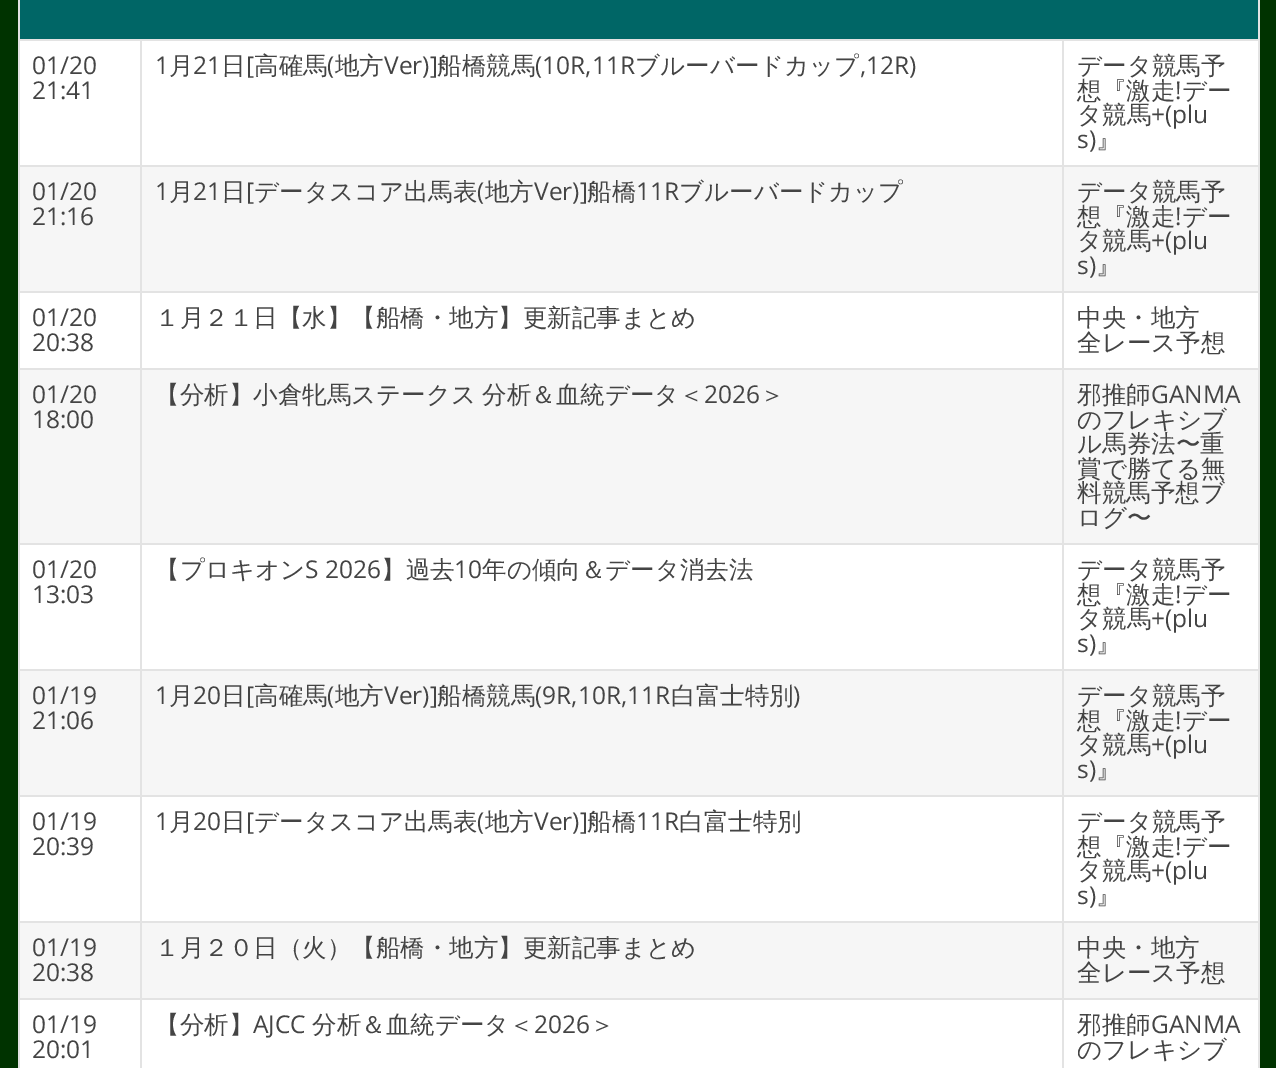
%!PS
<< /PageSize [1276 1068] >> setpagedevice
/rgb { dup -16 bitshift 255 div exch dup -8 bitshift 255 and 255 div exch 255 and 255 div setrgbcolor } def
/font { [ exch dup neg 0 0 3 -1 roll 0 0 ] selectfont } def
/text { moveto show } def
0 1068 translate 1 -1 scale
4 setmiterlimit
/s1 { /OpenSans-Regular 24.5 font 16#444444 rgb } def
/s2 { /WenQuanYiZenHei-Medium 24.5 font 16#444444 rgb } def
16#003300 rgb
0 0 1276 1068 rectfill
16#FFFFFF rgb
20 41 1238 1027 rectfill
16#006666 rgb
20 0 1238 39 rectfill
16#E3E3E3 rgb
18 39 1242 2 rectfill
18 165 1242 2 rectfill
18 291 1242 2 rectfill
18 368 1242 2 rectfill
18 543 1242 2 rectfill
18 669 1242 2 rectfill
18 795 1242 2 rectfill
18 921 1242 2 rectfill
18 998 1242 2 rectfill
1258 998 2 70 rectfill
1258 921 2 78 rectfill
1258 795 2 127 rectfill
1258 669 2 127 rectfill
1258 543 2 127 rectfill
1258 368 2 176 rectfill
1258 291 2 78 rectfill
1258 165 2 127 rectfill
1258 0 2 166 rectfill
18 998 2 70 rectfill
18 921 2 78 rectfill
18 795 2 127 rectfill
18 669 2 127 rectfill
18 543 2 127 rectfill
18 368 2 176 rectfill
18 291 2 78 rectfill
18 165 2 127 rectfill
18 0 2 166 rectfill
s1
(01/20) 32 74 text
(21:41) 32 99 text
(1) 155 74 text
s2
(月) 169 74 text
s1
(21) 193 74 text
s2
(日) 221 74 text
s1
([) 246 74 text
s2
(高確馬 地方) 254 74 text
(船橋競馬) 437 74 text
(ブルーバードカップ) 635 74 text
s1
(\() 327 74 text
(Ver\)]) 384 74 text
(\(10R,11R) 535 74 text
(,12R\)) 860 74 text
s2
(データ競馬予) 1077 74 text
(想『激走) 1077 99 text
s1
(!) 1175 99 text
s2
(デー) 1182 99 text
(タ競馬) 1077 123 text
s1
(+\(plu) 1151 123 text
(s\)) 1077 148 text
s2
(』) 1096 148 text
16#F6F6F6 rgb
20 167 1238 124 rectfill
s1
(01/20) 32 200 text
(21:16) 32 225 text
(1) 155 200 text
s2
(月) 169 200 text
s1
(21) 193 200 text
s2
(日) 221 200 text
s1
([) 246 200 text
s2
(データスコア出馬表 地方) 254 200 text
(船橋) 587 200 text
(ブルーバードカップ) 679 200 text
s1
(\() 477 200 text
(Ver\)]) 534 200 text
(11R) 636 200 text
s2
(データ競馬予) 1077 200 text
(想『激走) 1077 225 text
s1
(!) 1175 225 text
s2
(デー) 1182 225 text
(タ競馬) 1077 249 text
s1
(+\(plu) 1151 249 text
(s\)) 1077 274 text
s2
(』) 1096 274 text
s1
(01/20) 32 326 text
(20:38) 32 351 text
s2
(１月２１日【水】【船橋・地方】更新記事まとめ) 155 326 text
(中央・地方) 1077 326 text
(全レース予想) 1077 351 text
16#F6F6F6 rgb
20 370 1238 173 rectfill
s1
(01/20) 32 403 text
(18:00) 32 428 text
/WenQuanYiZenHei-Medium 24.5 font
155 403 moveto -1 0 32 (【分析】小倉牝馬ステークス 分析＆血統データ＜) widthshow
s1
(2026) 704 403 text
s2
(＞) 760 403 text
(邪推師) 1077 403 text
s1
(GANMA) 1151 403 text
s2
(のフレキシブ) 1077 428 text
(ル馬券法〜重) 1077 452 text
(賞で勝てる無) 1077 477 text
(料競馬予想ブ) 1077 501 text
(ログ〜) 1077 526 text
s1
(01/20) 32 578 text
(13:03) 32 603 text
s2
(【プロキオン) 155 578 text
s1
(S 2026) 305 578 text
s2
(】過去) 381 578 text
s1
(10) 454 578 text
s2
(年の傾向＆データ消去法) 482 578 text
(データ競馬予) 1077 578 text
(想『激走) 1077 603 text
s1
(!) 1175 603 text
s2
(デー) 1182 603 text
(タ競馬) 1077 627 text
s1
(+\(plu) 1151 627 text
(s\)) 1077 652 text
s2
(』) 1096 652 text
16#F6F6F6 rgb
20 671 1238 124 rectfill
s1
(01/19) 32 704 text
(21:06) 32 729 text
(1) 155 704 text
s2
(月) 169 704 text
s1
(20) 193 704 text
s2
(日) 221 704 text
s1
([) 246 704 text
s2
(高確馬 地方) 254 704 text
(船橋競馬) 437 704 text
(白富士特別) 671 704 text
s1
(\() 327 704 text
(Ver\)]) 384 704 text
(\(9R,10R,11R) 535 704 text
(\)) 793 704 text
s2
(データ競馬予) 1077 704 text
(想『激走) 1077 729 text
s1
(!) 1175 729 text
s2
(デー) 1182 729 text
(タ競馬) 1077 753 text
s1
(+\(plu) 1151 753 text
(s\)) 1077 778 text
s2
(』) 1096 778 text
s1
(01/19) 32 830 text
(20:39) 32 855 text
(1) 155 830 text
s2
(月) 169 830 text
s1
(20) 193 830 text
s2
(日) 221 830 text
s1
([) 246 830 text
s2
(データスコア出馬表 地方) 254 830 text
(船橋) 587 830 text
(白富士特別) 679 830 text
s1
(\() 477 830 text
(Ver\)]) 534 830 text
(11R) 636 830 text
s2
(データ競馬予) 1077 830 text
(想『激走) 1077 855 text
s1
(!) 1175 855 text
s2
(デー) 1182 855 text
(タ競馬) 1077 879 text
s1
(+\(plu) 1151 879 text
(s\)) 1077 904 text
s2
(』) 1096 904 text
16#F6F6F6 rgb
20 923 1238 75 rectfill
s1
(01/19) 32 956 text
(20:38) 32 981 text
s2
(１月２０日（火）【船橋・地方】更新記事まとめ) 155 956 text
(中央・地方) 1077 956 text
(全レース予想) 1077 981 text
s1
(01/19) 32 1033 text
(20:01) 32 1058 text
16#E3E3E3 rgb
140 39 2 1029 rectfill
s2
(【分析】) 155 1033 text
s1
(AJCC) 253 1033 text
s2
(分析＆血統データ＜) 312 1033 text
s1
(2026) 534 1033 text
s2
(＞) 590 1033 text
16#E3E3E3 rgb
1062 39 2 1029 rectfill
s2
(邪推師) 1077 1033 text
s1
(GANMA) 1151 1033 text
s2
(のフレキシブ) 1077 1058 text
showpage
